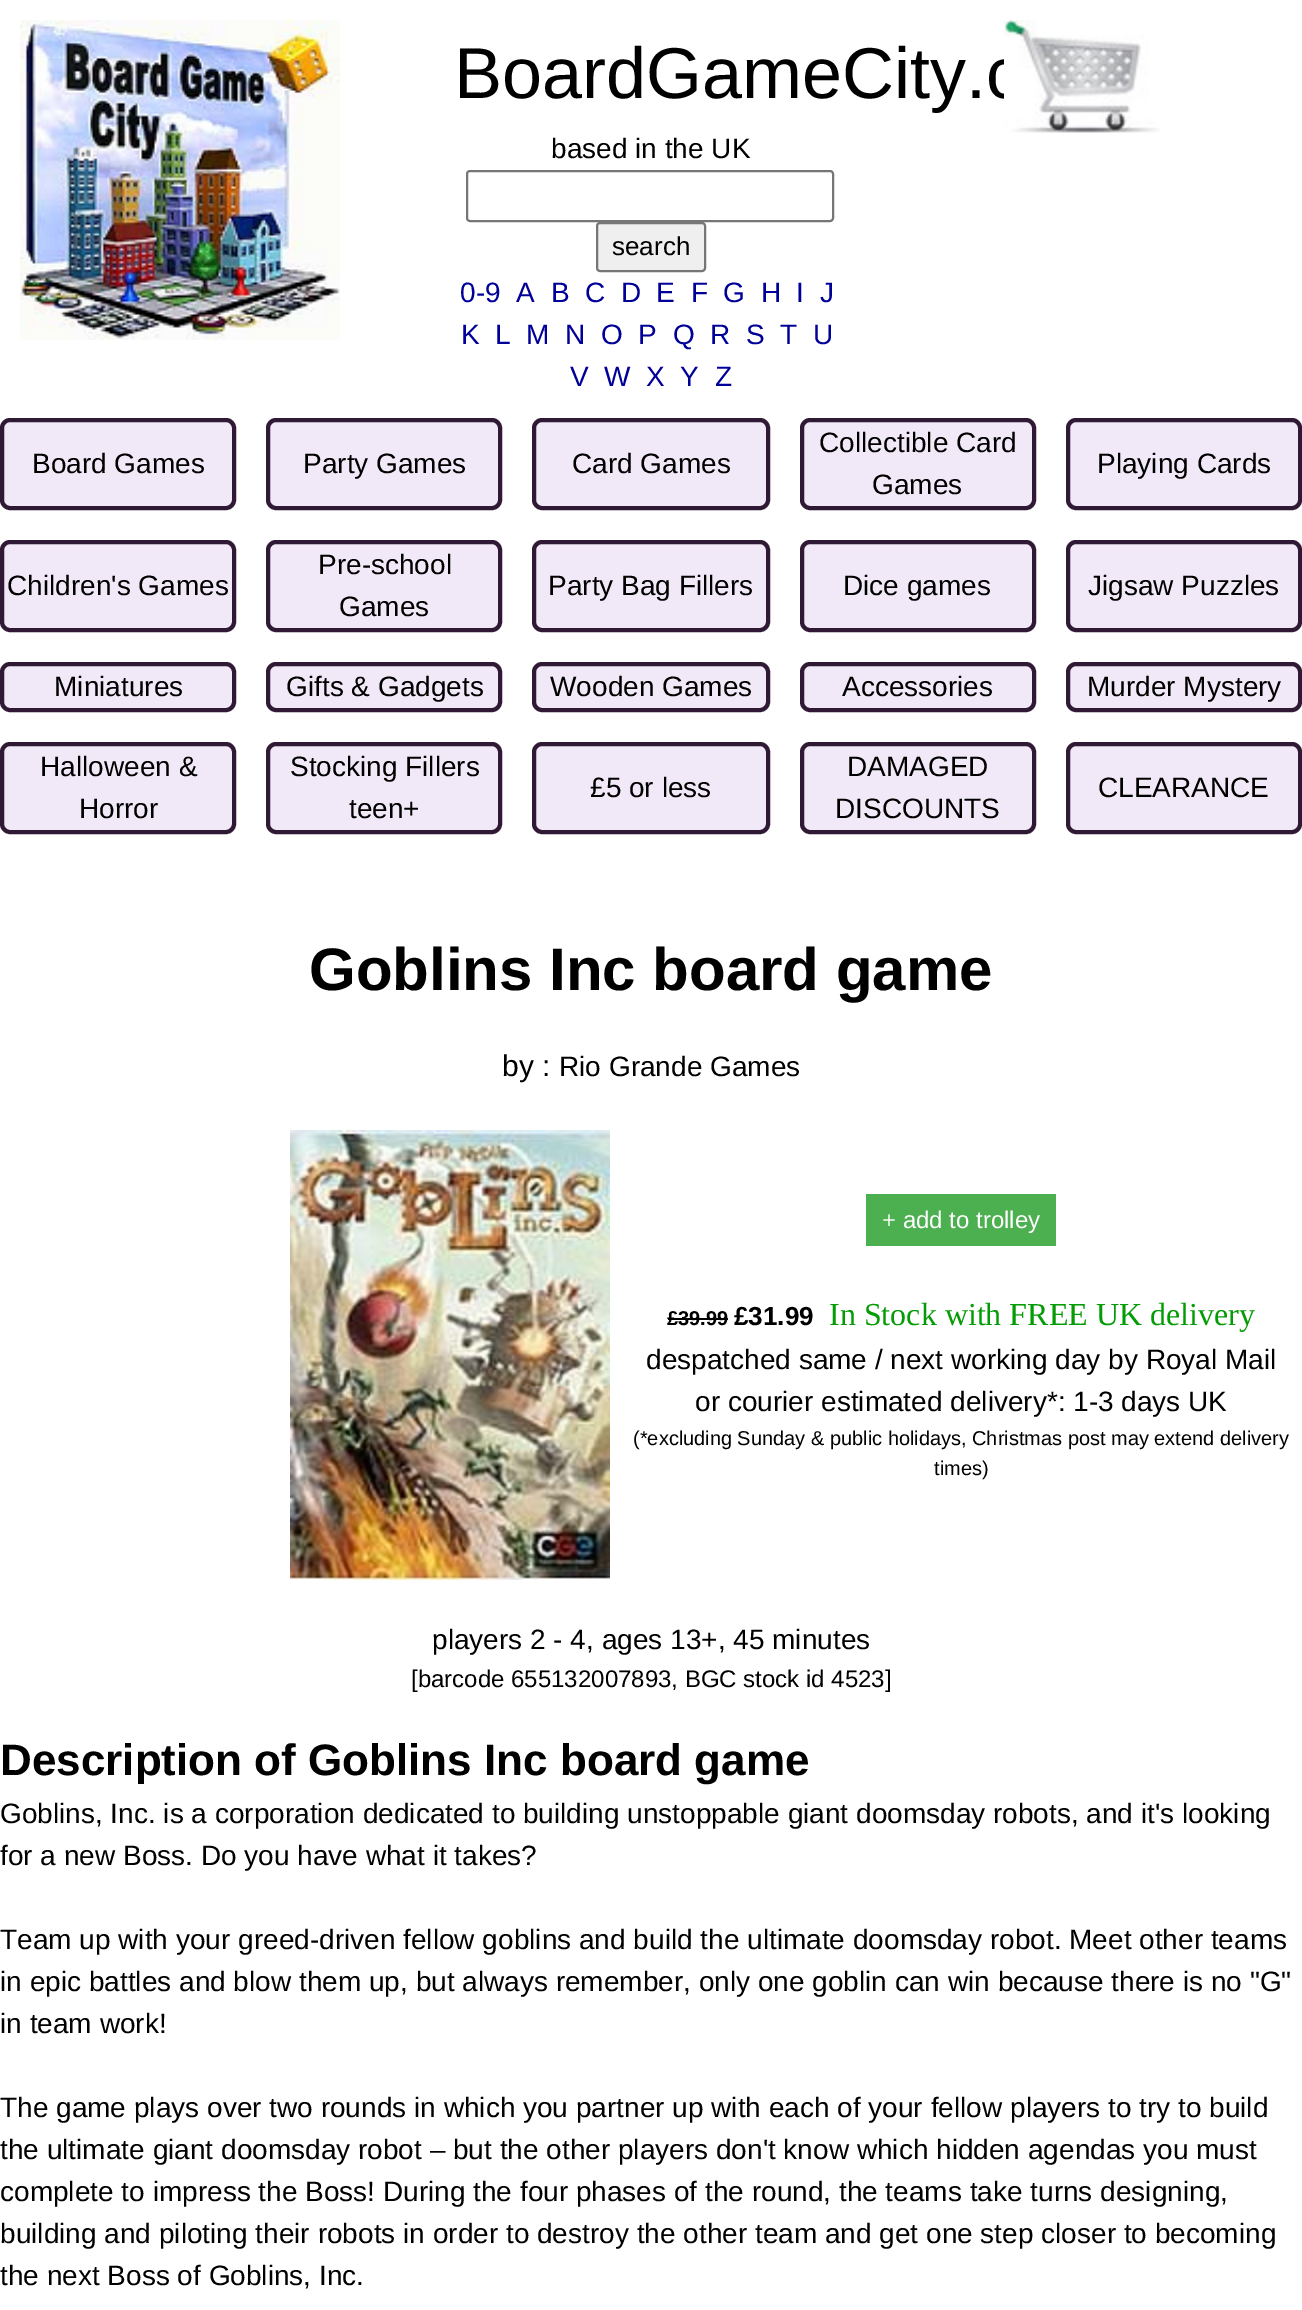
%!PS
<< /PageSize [1302 2310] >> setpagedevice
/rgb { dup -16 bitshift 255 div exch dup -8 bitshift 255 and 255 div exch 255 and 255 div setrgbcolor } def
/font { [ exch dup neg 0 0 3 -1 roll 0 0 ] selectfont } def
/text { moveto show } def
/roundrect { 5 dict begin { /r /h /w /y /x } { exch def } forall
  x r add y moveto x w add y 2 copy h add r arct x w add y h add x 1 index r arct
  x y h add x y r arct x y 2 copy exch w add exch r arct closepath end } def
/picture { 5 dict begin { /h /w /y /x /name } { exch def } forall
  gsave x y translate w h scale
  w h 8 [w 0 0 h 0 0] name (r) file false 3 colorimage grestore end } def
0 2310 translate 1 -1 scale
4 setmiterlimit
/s1 { /LiberationSans-Regular 72 font 16#000000 rgb } def
/s2 { /LiberationSans-Regular 28 font 16#000000 rgb } def
/s3 { /LiberationSans-Regular 26 font 16#000000 rgb } def
/s4 { /LiberationSans-Regular 28 font 16#000099 rgb } def
/s5 { /LiberationSans-Bold 60 font 16#000000 rgb } def
/s6 { /LiberationSans-Regular 30 font 16#000000 rgb } def
/s7 { /LiberationSans-Regular 24 font 16#FFFFFF rgb } def
/s8 { /LiberationSans-Bold 20 font 16#000000 rgb } def
/s9 { /LiberationSans-Bold 26 font 16#000000 rgb } def
/s10 { /LiberationSerif-Regular 32 font 16#049C04 rgb } def
/s11 { /LiberationSans-Regular 20 font 16#000000 rgb } def
/s12 { /LiberationSans-Regular 24 font 16#000000 rgb } def
/s13 { /LiberationSans-Bold 44 font 16#000000 rgb } def
16#FFFFFF rgb
0 0 1302 2310 rectfill
(pic1.raw) 20 20 320 320 picture
s1
(BoardGameCity.c) 454 98 text
s2
(based in the UK) 551 158 text
16#767676 rgb
2 setlinewidth
467 171 366 50 3 roundrect stroke
16#EFEFEF rgb
597 223 108 48 3 roundrect gsave fill grestore
16#767676 rgb
stroke
s3
(search) 612 255 text
s4
(0-9) 460 302 text
(A) 516 302 text
(B) 551 302 text
(C) 585 302 text
(D) 621 302 text
(E) 656 302 text
(F) 691 302 text
(G) 723 302 text
(H) 761 302 text
(I) 796 302 text
(J) 820 302 text
(K) 461 344 text
(L) 495 344 text
(M) 526 344 text
(N) 565 344 text
(O) 601 344 text
(P) 638 344 text
(Q) 673 344 text
(R) 710 344 text
(S) 746 344 text
(T) 780 344 text
(U) 813 344 text
(V) 570 386 text
(W) 604 386 text
(X) 646 386 text
(Y) 680 386 text
(Z) 715 386 text
(pic2.raw) 1004 20 156 113 picture
16#F1E9F7 rgb
2 420 232 88 8 roundrect gsave fill grestore
16#301934 rgb
4 setlinewidth
stroke
s2
(Board Games) 32 473 text
16#F1E9F7 rgb
268 420 232 88 8 roundrect gsave fill grestore
16#301934 rgb
stroke
s2
(Party Games) 303 473 text
16#F1E9F7 rgb
534 420 234 88 8 roundrect gsave fill grestore
16#301934 rgb
stroke
s2
(Card Games) 572 473 text
16#F1E9F7 rgb
802 420 232 88 8 roundrect gsave fill grestore
16#301934 rgb
stroke
s2
(Collectible Card) 819 452 text
(Games) 872 494 text
16#F1E9F7 rgb
1068 420 232 88 8 roundrect gsave fill grestore
16#301934 rgb
stroke
s2
(Playing Cards) 1097 473 text
16#F1E9F7 rgb
2 542 232 88 8 roundrect gsave fill grestore
16#301934 rgb
stroke
s2
(Children's Games) 7 595 text
16#F1E9F7 rgb
268 542 232 88 8 roundrect gsave fill grestore
16#301934 rgb
stroke
s2
(Pre-school) 318 574 text
(Games) 339 616 text
16#F1E9F7 rgb
534 542 234 88 8 roundrect gsave fill grestore
16#301934 rgb
stroke
s2
(Party Bag Fillers) 548 595 text
16#F1E9F7 rgb
802 542 232 88 8 roundrect gsave fill grestore
16#301934 rgb
stroke
s2
(Dice games) 843 595 text
16#F1E9F7 rgb
1068 542 232 88 8 roundrect gsave fill grestore
16#301934 rgb
stroke
s2
(Jigsaw Puzzles) 1088 595 text
16#F1E9F7 rgb
2 664 232 46 8 roundrect gsave fill grestore
16#301934 rgb
stroke
s2
(Miniatures) 54 696 text
16#F1E9F7 rgb
268 664 232 46 8 roundrect gsave fill grestore
16#301934 rgb
stroke
s2
(Gifts & Gadgets) 286 696 text
16#F1E9F7 rgb
534 664 234 46 8 roundrect gsave fill grestore
16#301934 rgb
stroke
s2
(Wooden Games) 550 696 text
16#F1E9F7 rgb
802 664 232 46 8 roundrect gsave fill grestore
16#301934 rgb
stroke
s2
(Accessories) 842 696 text
16#F1E9F7 rgb
1068 664 232 46 8 roundrect gsave fill grestore
16#301934 rgb
stroke
s2
(Murder Mystery) 1087 696 text
16#F1E9F7 rgb
2 744 232 88 8 roundrect gsave fill grestore
16#301934 rgb
stroke
s2
(Halloween &) 40 776 text
(Horror) 79 818 text
16#F1E9F7 rgb
268 744 232 88 8 roundrect gsave fill grestore
16#301934 rgb
stroke
s2
(Stocking Fillers) 290 776 text
(teen+) 349 818 text
16#F1E9F7 rgb
534 744 234 88 8 roundrect gsave fill grestore
16#301934 rgb
stroke
s2
(£5 or less) 590 797 text
16#F1E9F7 rgb
802 744 232 88 8 roundrect gsave fill grestore
16#301934 rgb
stroke
s2
(DAMAGED) 847 776 text
(DISCOUNTS) 835 818 text
16#F1E9F7 rgb
1068 744 232 88 8 roundrect gsave fill grestore
16#301934 rgb
stroke
s2
(CLEARANCE) 1098 797 text
s5
(Goblins Inc board game) 309 990 text
s6
(by :) 502 1076 text
s2
(Rio Grande Games) 559 1076 text
(pic3.raw) 290 1130 320 450 picture
16#4CAF50 rgb
866 1194 190 52 rectfill
s7
(+ add to trolley) 882 1228 text
s8
(£39.99) 667 1325 text
668 1318 60 2 rectfill
s9
(£31.99) 734 1325 text
s10
(In Stock with FREE UK delivery) 829 1325 text
s2
(despatched same / next working day by Royal Mail) 646 1369 text
(or courier estimated delivery*: 1-3 days UK) 695 1411 text
s11
(\(*excluding Sunday & public holidays, Christmas post may extend delivery) 633 1445 text
(times\)) 934 1475 text
s2
(players 2 - 4, ages 13+, 45 minutes) 432 1649 text
s12
([barcode 655132007893, BGC stock id 4523]) 411 1687 text
s13
(Description of Goblins Inc board game) 0 1775 text
s2
(Goblins, Inc. is a corporation dedicated to building unstoppable giant doomsday robots, and it's looking) 0 1823 text
(for a new Boss. Do you have what it takes?) 0 1865 text
(Team up with your greed-driven fellow goblins and build the ultimate doomsday robot. Meet other teams) 0 1949 text
(in epic battles and blow them up, but always remember, only one goblin can win because there is no "G") 0 1991 text
(in team work!) 0 2033 text
(The game plays over two rounds in which you partner up with each of your fellow players to try to build) 0 2117 text
(the ultimate giant doomsday robot – but the other players don't know which hidden agendas you must) 0 2159 text
(complete to impress the Boss! During the four phases of the round, the teams take turns designing,) 0 2201 text
(building and piloting their robots in order to destroy the other team and get one step closer to becoming) 0 2243 text
(the next Boss of Goblins, Inc.) 0 2285 text
showpage
